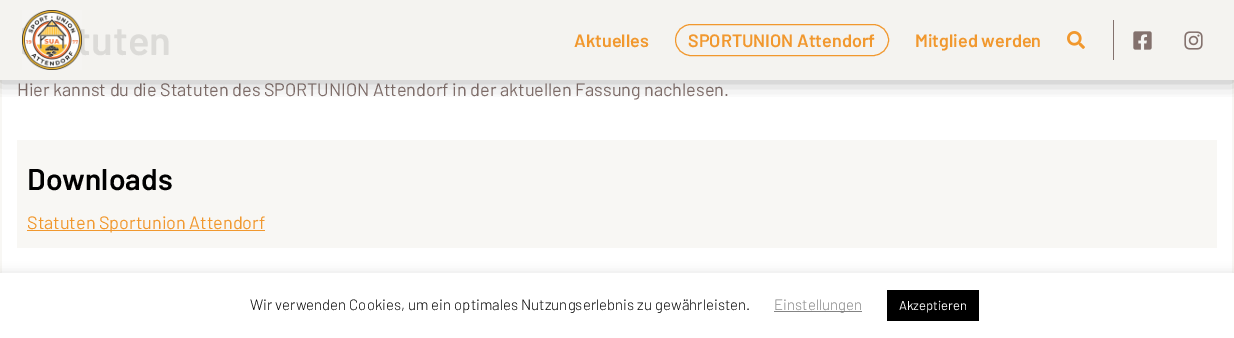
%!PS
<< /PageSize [1234 338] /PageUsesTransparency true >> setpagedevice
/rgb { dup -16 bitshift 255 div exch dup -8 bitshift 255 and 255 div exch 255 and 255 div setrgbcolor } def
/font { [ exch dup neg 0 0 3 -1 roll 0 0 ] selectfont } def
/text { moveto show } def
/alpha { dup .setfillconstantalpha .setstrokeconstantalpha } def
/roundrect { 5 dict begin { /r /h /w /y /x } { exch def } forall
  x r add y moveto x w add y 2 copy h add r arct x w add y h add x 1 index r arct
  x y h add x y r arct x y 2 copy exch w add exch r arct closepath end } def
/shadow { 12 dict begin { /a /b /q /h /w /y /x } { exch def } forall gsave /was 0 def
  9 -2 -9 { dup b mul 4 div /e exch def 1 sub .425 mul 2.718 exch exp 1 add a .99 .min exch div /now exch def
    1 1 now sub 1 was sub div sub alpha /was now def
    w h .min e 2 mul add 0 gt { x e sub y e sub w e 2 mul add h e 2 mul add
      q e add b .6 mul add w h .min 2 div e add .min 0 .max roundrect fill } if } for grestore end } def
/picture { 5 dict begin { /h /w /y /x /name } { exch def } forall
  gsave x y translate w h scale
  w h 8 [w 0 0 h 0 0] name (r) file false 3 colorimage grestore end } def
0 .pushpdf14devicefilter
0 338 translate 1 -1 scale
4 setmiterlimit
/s1 { /Barlow-SemiBold 40 font 16#DCDBD8 rgb } def
/s2 { /Barlow-Regular 18 font 16#83716D rgb } def
/s3 { /Barlow-SemiBold 30 font 16#000000 rgb } def
/s4 { /Barlow-Regular 18 font 16#F1982E rgb } def
/s5 { /Barlow-SemiBold 18 font 16#F1982E rgb } def
/s6 { /Barlow-Light 15 font 16#000000 rgb } def
/s7 { /Barlow-Light 15 font 16#848484 rgb } def
/s8 { /Barlow-Regular 13 font 16#FFFFFF rgb } def
16#F8F7F4 rgb
0 0 1234 338 rectfill
16#F4F3F0 rgb
0 0 1234 80 rectfill
16#FFFFFF rgb
2 80 1230 193 rectfill
s1
(tuten) 76 55 text
s2
(Hier kannst du die Statuten des SPORTUNION Attendorf in der aktuellen Fassung nachlesen.) 17 96 text
16#F8F7F4 rgb
17 140 1200 108 rectfill
s3
(Downloads) 27 190 text
16#F1982E rgb
27 230 238 1 rectfill
s4
(Statuten Sportunion Attendorf) 27 229 text
gsave
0 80 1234 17 rectclip
16#000000 rgb
0 2 1234 80 0 10 0.3 shadow
grestore
(pic1.raw) 22 10 60 60 picture
s5
(Aktuelles) 574 47 text
675.5 24.5 213 31 15.5 roundrect stroke
(SPORTUNION Attendorf) 688 47 text
(Mitglied werden) 915 47 text
(pic2.raw) 1067 31 18 18 picture
16#83716D rgb
1113 20 1 40 rectfill
(pic3.raw) 1133 31 19 19 picture
(pic4.raw) 1184 31 19 19 picture
16#ACABAB rgb
0 272 1234 65 0 5 0.3 shadow
16#FFFFFF rgb
0 273 1234 65 rectfill
s6
(Wir verwenden Cookies, um ein optimales Nutzungserlebnis zu gewährleisten.) 250 310 text
16#848484 rgb
774 311 88 1 rectfill
(Einstellungen) 774 310 text
16#000000 rgb
887 290 92 31 rectfill
s8
(Akzeptieren) 899 310 text
.poppdf14devicefilter showpage
